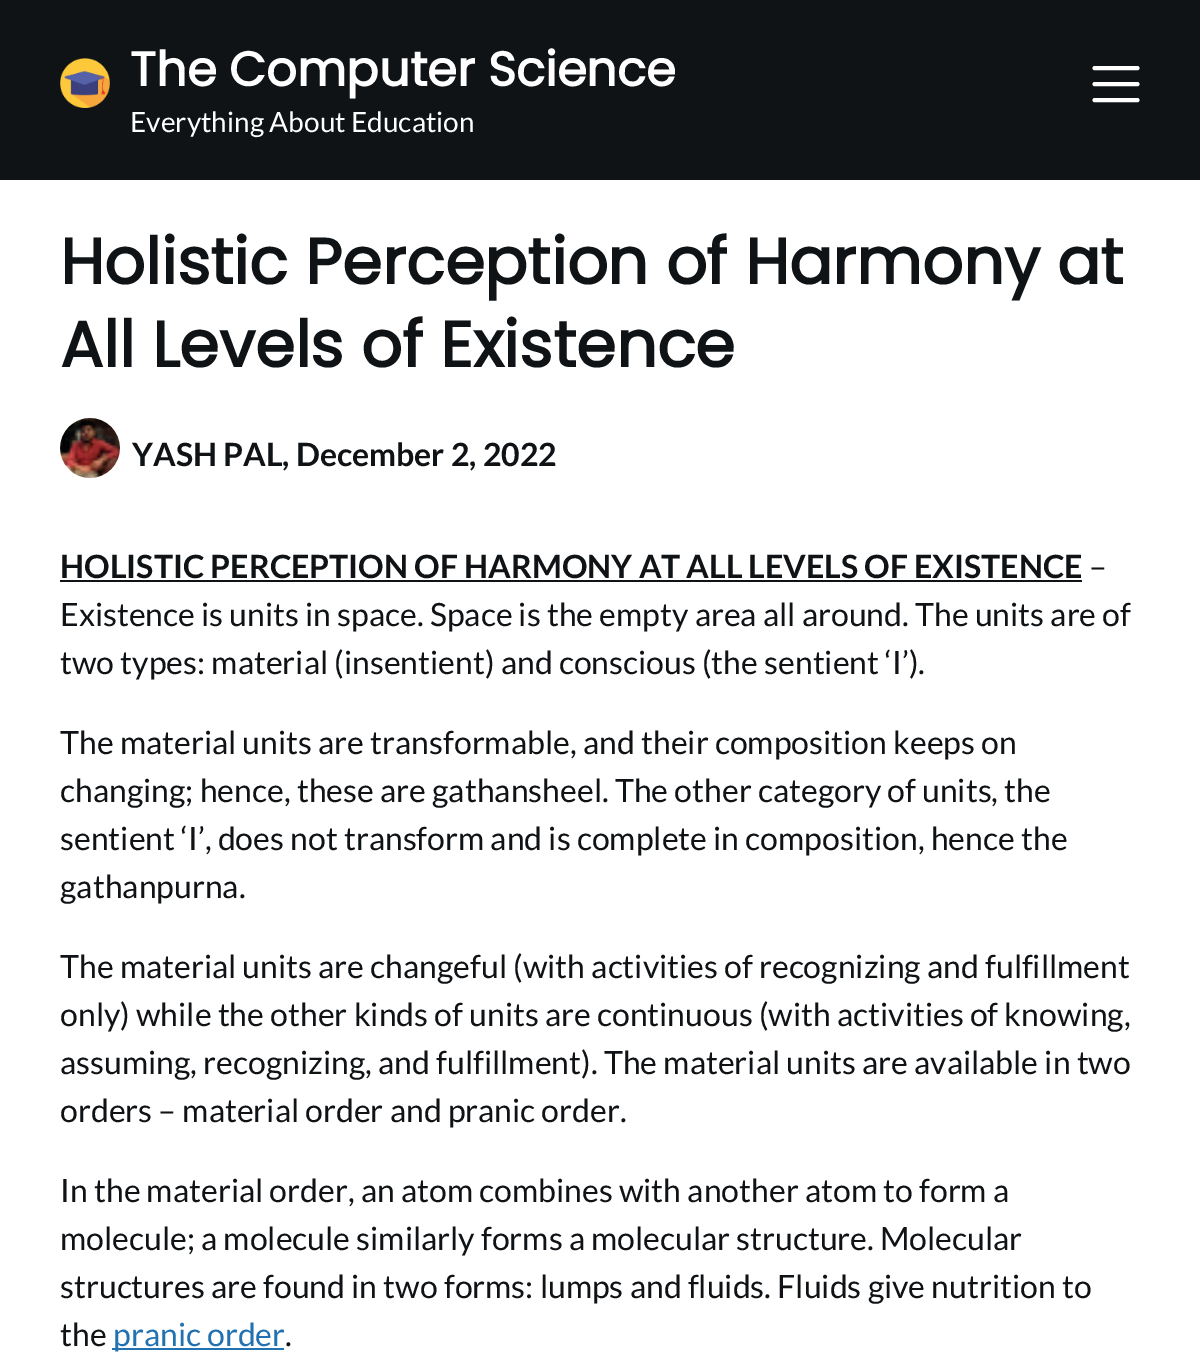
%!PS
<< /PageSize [1200 1354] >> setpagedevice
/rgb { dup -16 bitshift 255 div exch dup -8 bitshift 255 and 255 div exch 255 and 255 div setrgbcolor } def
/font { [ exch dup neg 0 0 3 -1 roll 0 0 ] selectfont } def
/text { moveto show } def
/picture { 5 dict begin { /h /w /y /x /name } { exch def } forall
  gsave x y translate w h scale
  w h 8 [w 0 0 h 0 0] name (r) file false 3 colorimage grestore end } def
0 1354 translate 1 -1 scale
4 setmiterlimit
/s1 { /Poppins-Bold 48 font 16#FFFFFF rgb } def
/s2 { /Lato-Regular 28 font 16#FFFFFF rgb } def
/s3 { /Poppins-Bold 64 font 16#0F1316 rgb } def
/s4 { /Lato-Bold 32 font 16#0F1316 rgb } def
/s5 { /Lato-Regular 32 font 16#0F1316 rgb } def
/s6 { /Lato-Regular 32 font 16#2271B1 rgb } def
16#FFFFFF rgb
0 0 1200 1354 rectfill
16#0F1316 rgb
0 0 1200 180 rectfill
(pic1.raw) 60 58 50 50 picture
s1
(The Computer Science) 130 86 text
s2
(Everything About Education) 130 132 text
4 setlinewidth
1 setlinecap
1 setlinejoin
1094.5 68 moveto 1137.5 68 lineto 1094.5 84 moveto 1137.5 84 lineto 1094.5 100 moveto 1137.5 100 lineto stroke
s3
(Holistic Perception of Harmony at) 60 284 text
(All Levels of Existence) 60 367 text
(pic2.raw) 60 418 60 60 picture
s4
(YASH PAL, December 2, 2022) 132 466 text
(HOLISTIC PERCEPTION OF HARMONY AT ALL LEVELS OF EXISTENCE) 60 578 text
60 580 1022 2 rectfill
s5
(–) 1089 578 text
(Existence is units in space. Space is the empty area all around. The units are of) 60 626 text
(two types: material \(insentient\) and conscious \(the sentient ‘I’\).) 60 674 text
(The material units are transformable, and their composition keeps on) 60 754 text
(changing; hence, these are gathansheel. The other category of units, the) 60 802 text
(sentient ‘I’, does not transform and is complete in composition, hence the) 60 850 text
(gathanpurna.) 60 898 text
(The material units are changeful \(with activities of recognizing and fulfillment) 60 978 text
(only\) while the other kinds of units are continuous \(with activities of knowing,) 60 1026 text
(assuming, recognizing, and fulfillment\). The material units are available in two) 60 1074 text
(orders – material order and pranic order.) 60 1122 text
(In the material order, an atom combines with another atom to form a) 60 1202 text
(molecule; a molecule similarly forms a molecular structure. Molecular) 60 1250 text
(structures are found in two forms: lumps and fluids. Fluids give nutrition to) 60 1298 text
(the) 60 1346 text
16#2271B1 rgb
112 1348 172 2 rectfill
(pranic order) 113 1346 text
s5
(.) 285 1346 text
showpage
